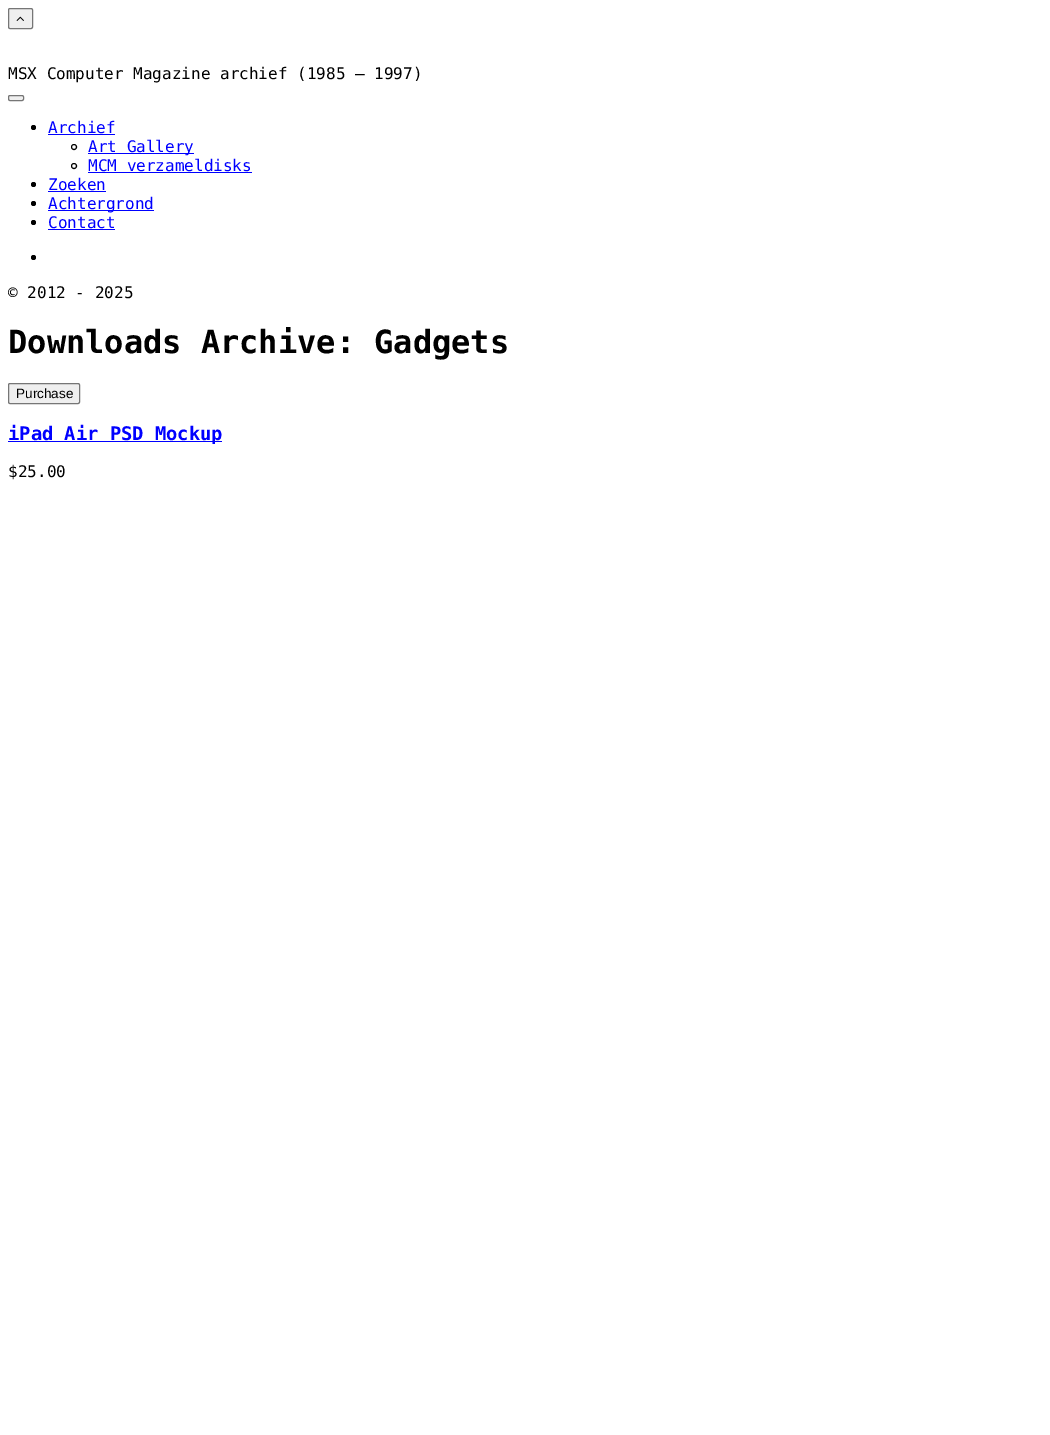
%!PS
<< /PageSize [1050 1435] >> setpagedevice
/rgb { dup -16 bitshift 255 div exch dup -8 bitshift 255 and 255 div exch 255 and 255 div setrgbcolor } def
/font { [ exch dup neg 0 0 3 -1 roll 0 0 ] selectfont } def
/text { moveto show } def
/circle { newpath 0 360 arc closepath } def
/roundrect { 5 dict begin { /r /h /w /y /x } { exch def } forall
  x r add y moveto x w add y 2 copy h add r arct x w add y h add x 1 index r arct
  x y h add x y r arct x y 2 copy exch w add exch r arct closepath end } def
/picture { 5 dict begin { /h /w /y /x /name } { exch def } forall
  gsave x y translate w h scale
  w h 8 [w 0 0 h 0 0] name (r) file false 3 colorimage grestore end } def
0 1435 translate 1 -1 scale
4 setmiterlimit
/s1 { /DejaVuSansMono-Regular 16 font 16#000000 rgb } def
/s2 { /DejaVuSansMono-Regular 16 font 16#0000FF rgb } def
/s3 { /DejaVuSansMono-Bold 32 font 16#000000 rgb } def
/s4 { /LiberationSans-Regular 13.5 font 16#000000 rgb } def
/s5 { /DejaVuSansMono-Bold 18.75 font 16#0000FF rgb } def
16#FFFFFF rgb
0 0 1050 1435 rectfill
16#EFEFEF rgb
8.5 8.5 24 20 1.5 roundrect gsave fill grestore
16#767676 rgb
stroke
(pic1.raw) 16 16 8 5 picture
s1
(MSX Computer Magazine archief \(1985 – 1997\)) 8 79 text
16#EFEFEF rgb
8.5 95.5 15 5 1.5 roundrect gsave fill grestore
16#767676 rgb
stroke
16#000000 rgb
33.5 127.5 2.5 circle fill
s2
(Archief) 48 133 text
48 134 67 1 rectfill
16#000000 rgb
74 147 2.5 circle stroke
16#0000FF rgb
88 153 106 1 rectfill
(Art Gallery) 88 152 text
16#000000 rgb
74 166 2.5 circle stroke
s2
(MCM verzameldisks) 88 171 text
88 172 164 1 rectfill
16#000000 rgb
33.5 184.5 2.5 circle fill
s2
(Zoeken) 48 190 text
48 191 58 1 rectfill
16#000000 rgb
33.5 203.5 2.5 circle fill
16#0000FF rgb
48 210 106 1 rectfill
(Achtergrond) 48 209 text
16#000000 rgb
33.5 222.5 2.5 circle fill
s2
(Contact) 48 228 text
48 229 67 1 rectfill
16#000000 rgb
33.5 257.5 2.5 circle fill
(© 2012 - 2025) 8 298 text
s3
(Downloads Archive: Gadgets) 8 353 text
16#EFEFEF rgb
8.5 383.5 71 20 1.5 roundrect gsave fill grestore
16#767676 rgb
stroke
s4
(Purchase) 16 398 text
16#0000FF rgb
8 441 214 1 rectfill
s5
(iPad Air PSD Mockup) 8 440 text
s1
($25.00) 8 477 text
showpage
